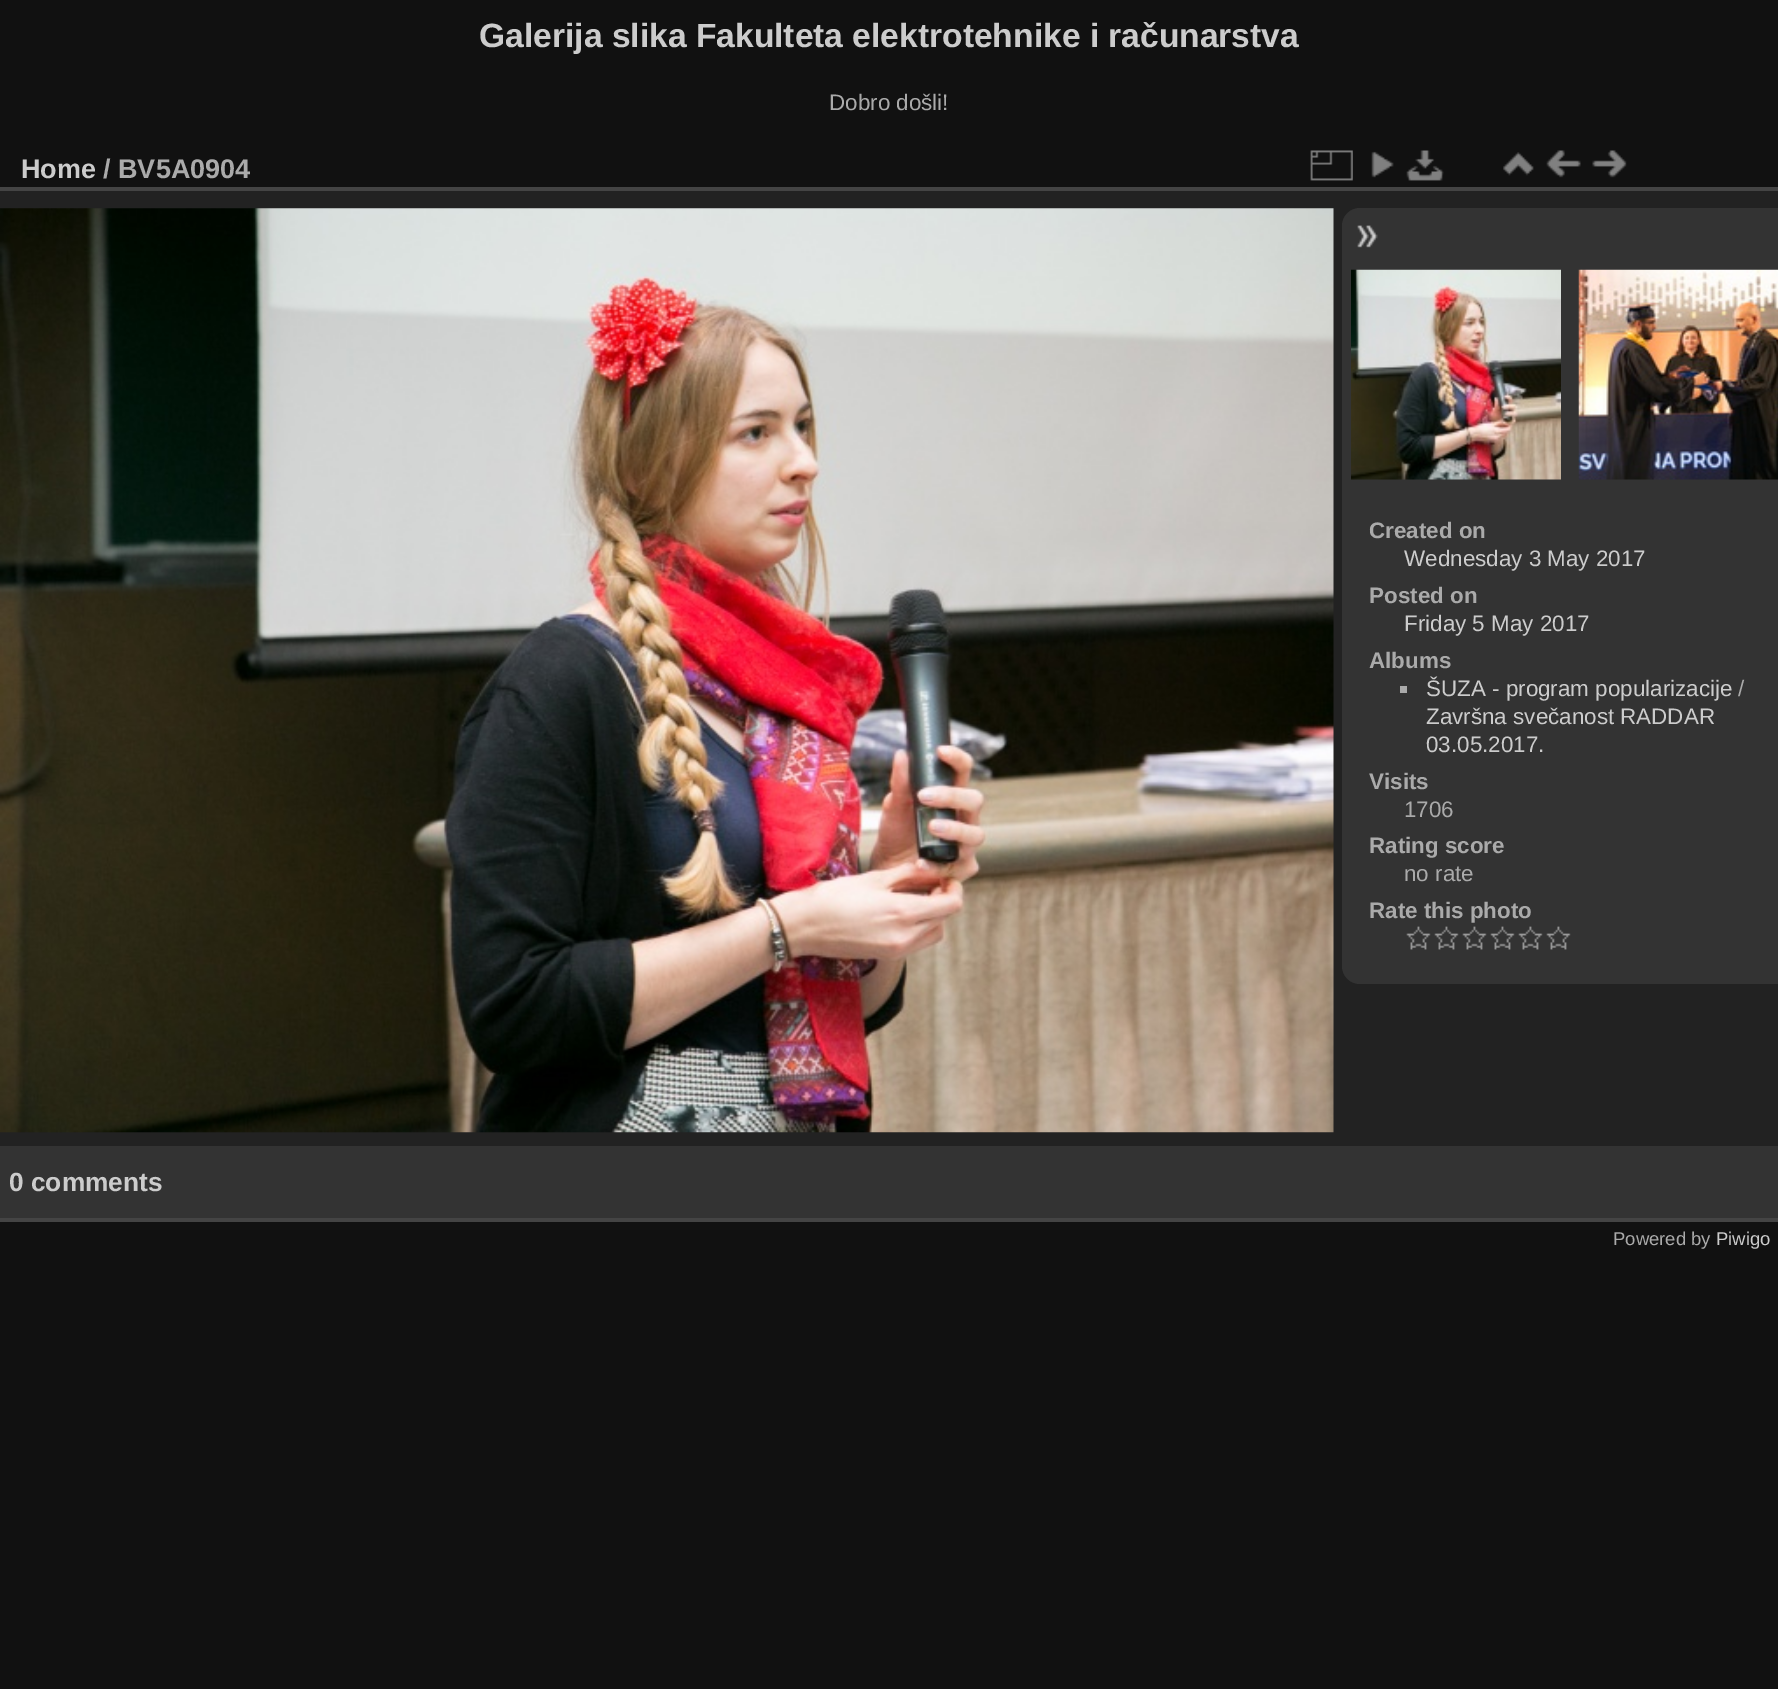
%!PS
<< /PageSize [1778 1689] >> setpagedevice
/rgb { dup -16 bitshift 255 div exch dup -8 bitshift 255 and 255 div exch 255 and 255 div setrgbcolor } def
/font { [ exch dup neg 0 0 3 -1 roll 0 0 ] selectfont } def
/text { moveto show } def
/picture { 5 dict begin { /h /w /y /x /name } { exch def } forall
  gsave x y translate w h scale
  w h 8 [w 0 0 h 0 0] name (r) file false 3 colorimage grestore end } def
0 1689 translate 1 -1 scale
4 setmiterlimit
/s1 { /LiberationSans-Bold 33.6 font 16#CCCCCC rgb } def
/s2 { /LiberationSans-Regular 22.4 font 16#AAAAAA rgb } def
/s3 { /LiberationSans-Bold 27 font 16#CCCCCC rgb } def
/s4 { /LiberationSans-Bold 27 font 16#AAAAAA rgb } def
/s5 { /LiberationSans-Bold 22.4 font 16#AAAAAA rgb } def
/s6 { /LiberationSans-Regular 22.4 font 16#CCCCCC rgb } def
/s7 { /LiberationSans-Bold 26.25 font 16#CCCCCC rgb } def
/s8 { /LiberationSans-Regular 18.5 font 16#AAAAAA rgb } def
/s9 { /LiberationSans-Regular 18.5 font 16#CCCCCC rgb } def
16#111111 rgb
0 0 1778 1689 rectfill
s1
(Galerija slika Fakulteta elektrotehnike i računarstva) 479 47 text
s2
(Dobro došli!) 829 110 text
16#222222 rgb
0 191 1778 955 rectfill
16#444444 rgb
0 1218 1778 4 rectfill
0 187 1778 4 rectfill
s3
(Home) 21 178 text
s4
(/ BV5A0904) 103 178 text
(pic1.raw) 1310 150 43 31 picture
(pic2.raw) 1371 151 23 27 picture
(pic3.raw) 1406 150 38 31 picture
(pic4.raw) 1503 152 31 24 picture
(pic5.raw) 1546 150 35 28 picture
(pic6.raw) 1592 150 35 28 picture
(pic7.raw) 0 208 1334 925 picture
16#333333 rgb
1360 208 moveto 1778 208 lineto 1778 984 lineto 1360 984 lineto 1350 984 1342 976 1342 966 curveto 1342 226 lineto 1342 216 1350 208 1360 208 curveto closepath fill
(pic8.raw) 1357 225 21 23 picture
(pic9.raw) 1351 269 210 211 picture
(pic10.raw) 1578 269 200 211 picture
s5
(Created on) 1369 538 text
s6
(Wednesday 3 May 2017) 1404 566 text
s5
(Posted on) 1369 603 text
s6
(Friday 5 May 2017) 1404 631 text
s5
(Albums) 1369 668 text
1400 686 7 7 rectfill
s6
(ŠUZA - program popularizacije) 1426 696 text
s2
(/) 1738 696 text
s6
(Završna svečanost RADDAR) 1426 724 text
(03.05.2017.) 1426 752 text
s5
(Visits) 1369 789 text
s2
(1706) 1404 817 text
s5
(Rating score) 1369 853 text
s2
(no rate) 1404 881 text
s5
(Rate this photo) 1369 918 text
(pic11.raw) 1406 926 25 24 picture
(pic11.raw) 1434 926 25 24 picture
(pic11.raw) 1462 926 25 24 picture
(pic11.raw) 1490 926 25 24 picture
(pic12.raw) 1518 926 25 24 picture
(pic12.raw) 1546 926 25 24 picture
16#333333 rgb
0 1146 1778 72 rectfill
s7
(0 comments) 9 1191 text
s8
(Powered by) 1613 1245 text
s9
(Piwigo) 1716 1245 text
showpage
